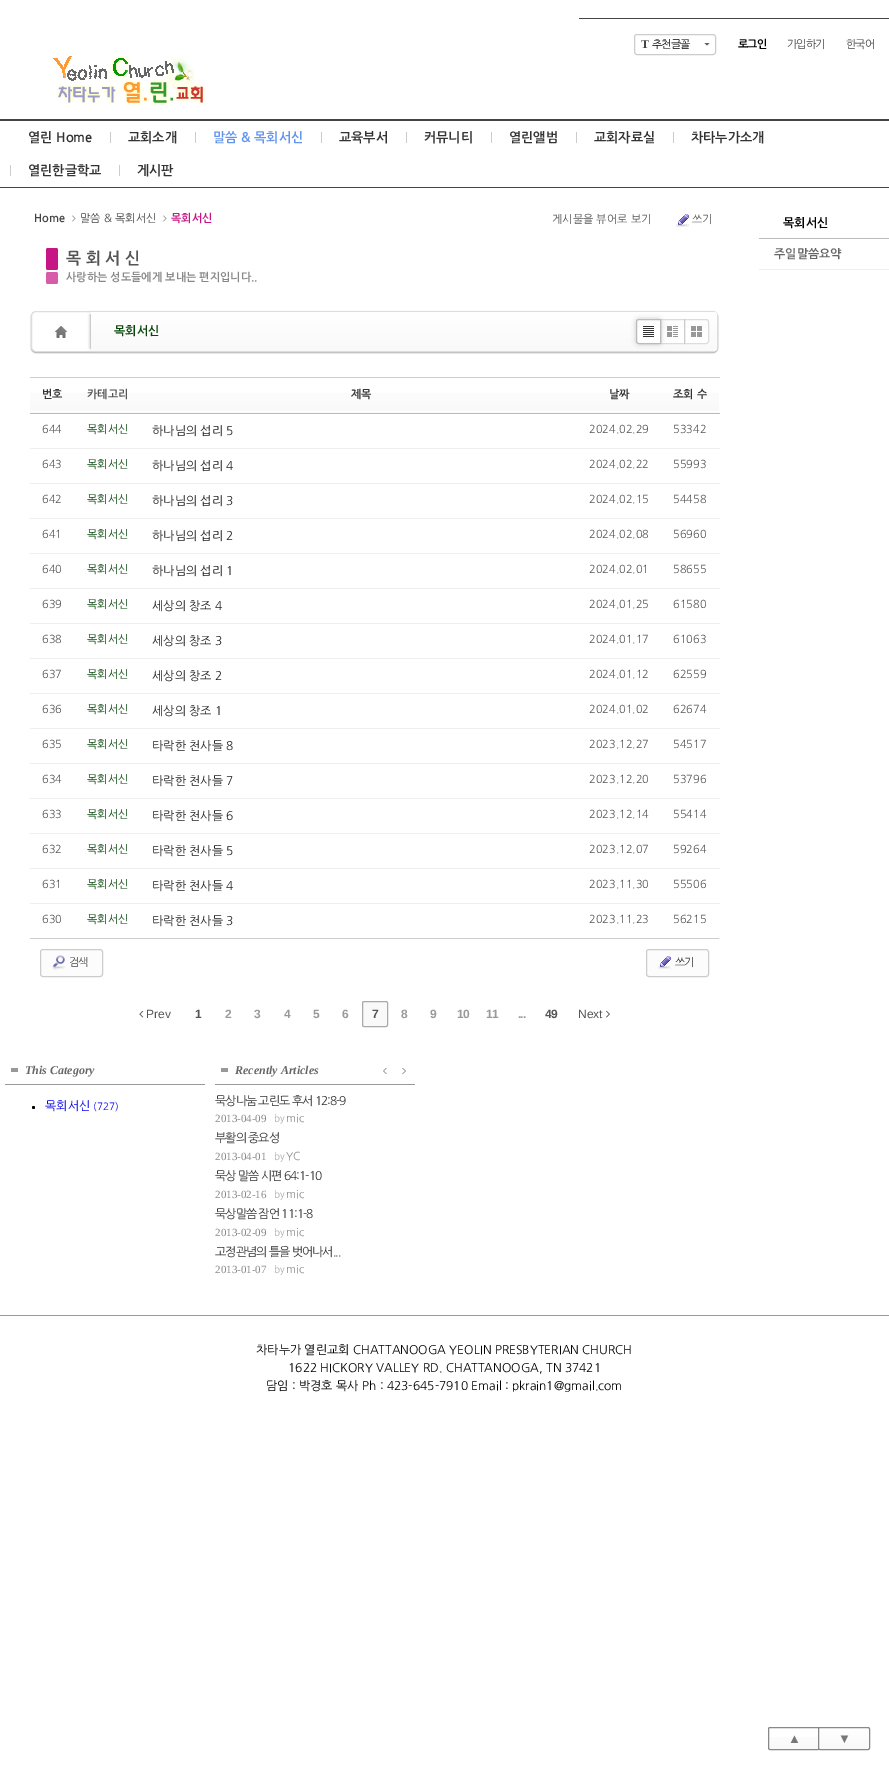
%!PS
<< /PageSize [889 1769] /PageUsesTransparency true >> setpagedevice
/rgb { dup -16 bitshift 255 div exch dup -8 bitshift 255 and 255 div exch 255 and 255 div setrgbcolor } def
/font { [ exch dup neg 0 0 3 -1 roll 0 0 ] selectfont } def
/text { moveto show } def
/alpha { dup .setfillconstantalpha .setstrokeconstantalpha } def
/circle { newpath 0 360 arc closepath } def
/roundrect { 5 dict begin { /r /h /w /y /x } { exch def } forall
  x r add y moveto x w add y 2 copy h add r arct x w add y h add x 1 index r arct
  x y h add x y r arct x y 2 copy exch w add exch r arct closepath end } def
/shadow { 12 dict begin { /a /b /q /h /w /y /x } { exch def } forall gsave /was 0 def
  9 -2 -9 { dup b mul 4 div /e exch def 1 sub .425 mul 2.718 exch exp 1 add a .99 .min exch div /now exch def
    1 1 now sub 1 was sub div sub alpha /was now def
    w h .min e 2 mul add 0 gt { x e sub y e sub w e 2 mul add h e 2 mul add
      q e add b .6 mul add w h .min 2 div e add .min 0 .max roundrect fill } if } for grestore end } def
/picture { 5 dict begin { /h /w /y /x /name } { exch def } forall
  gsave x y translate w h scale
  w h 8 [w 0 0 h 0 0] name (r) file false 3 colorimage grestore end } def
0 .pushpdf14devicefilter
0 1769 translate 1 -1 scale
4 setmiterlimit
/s1 { /NanumGothic-Bold 13 font 16#333333 rgb } def
/s2 { /NanumGothic-Bold 13 font 16#6495ED rgb } def
/s3 { /NanumGothic-Bold 11 font 16#444444 rgb } def
/s4 { /NanumGothic-Regular 11 font 16#444444 rgb } def
/s5 { /NanumGothic-Bold 11 font 16#C71585 rgb } def
/s6 { /NanumGothic-Regular 11 font 16#555555 rgb } def
/s7 { /NanumGothic-Bold 16 font 16#555555 rgb } def
/s8 { /NanumGothic-Bold 11 font 16#888888 rgb } def
/s9 { /NanumGothic-Bold 12 font 16#07470B rgb } def
/s10 { /NanumGothic-Bold 11 font 16#333333 rgb } def
/s11 { /NanumGothic-Bold 11 font 16#555555 rgb } def
/s12 { /NanumGothic-Regular 11 font 16#07470B rgb } def
/s13 { /NanumGothic-Regular 12 font 16#222222 rgb } def
/s14 { /LiberationSans-Regular 12 font 16#555555 rgb } def
/s15 { /NanumGothic-Bold 12 font 16#000000 rgb } def
/s16 { /NanumGothic-Bold 12 font 16#666666 rgb } def
/s17 { /LiberationSerif-Regular 13 font 16#777777 rgb } def
/s18 { /LiberationSerif-BoldItalic 12 font 16#666666 rgb } def
/s19 { /NanumGothic-Regular 12 font 16#0000EE rgb } def
/s20 { /NanumGothic-Regular 10 font 16#0000EE rgb } def
/s21 { /LiberationSerif-Regular 11 font 16#888888 rgb } def
/s22 { /NanumGothic-Regular 10 font 16#AAAAAA rgb } def
/s23 { /NanumGothic-Regular 11 font 16#888888 rgb } def
/s24 { /NanumGothic-Regular 12 font 16#000000 rgb } def
16#FFFFFF rgb
0 0 889 1769 rectfill
16#444444 rgb
579 18 310 1 rectfill
16#CCCCCC rgb
634.5 34.5 81 20 2.5 roundrect stroke
/LiberationSerif-Bold 12 font
16#444444 rgb
641 48 moveto -1 0 (T) ashow
/NanumGothic-Regular 11 font
16#000000 rgb
652 48 moveto -1 0 (추천글꼴) ashow
16#666666 rgb
704 43 moveto 710 43 lineto 707 46 lineto closepath fill
16#FFFFFF rgb
710 43 moveto 710 46 lineto 707 46 lineto closepath 704 46 moveto 704 43 lineto 707 46 lineto closepath fill
/NanumGothic-Bold 11 font
16#000000 rgb
738 48 moveto -1 0 (로그인) ashow
/NanumGothic-Regular 11 font
16#444444 rgb
787 48 moveto -1 0 (가입하기) ashow
846 48 moveto -1 0 (한국어) ashow
(pic1.raw) 53 55 153 51 picture
0 119 889 2 rectfill
0 187 889 1 rectfill
s1
(열린 Home) 28 142 text
16#CCCCCC rgb
110 132 1 11 rectfill
s1
(교회소개) 128 142 text
16#CCCCCC rgb
195 132 1 11 rectfill
s2
(말씀 & 목회서신) 213 142 text
16#CCCCCC rgb
321 132 1 11 rectfill
s1
(교육부서) 339 142 text
16#CCCCCC rgb
406 132 1 11 rectfill
s1
(커뮤니티) 424 142 text
16#CCCCCC rgb
491 132 1 11 rectfill
s1
(열린앨범) 509 142 text
16#CCCCCC rgb
576 132 1 11 rectfill
s1
(교회자료실) 594 142 text
16#CCCCCC rgb
673 132 1 11 rectfill
s1
(차타누가소개) 691 142 text
16#CCCCCC rgb
10 165 1 11 rectfill
s1
(열린한글학교) 28 175 text
16#CCCCCC rgb
119 165 1 11 rectfill
s1
(게시판) 137 175 text
s3
(Home) 34 222 text
(pic2.raw) 72 215 4 7 picture
s4
(말씀 & 목회서신) 80 222 text
(pic2.raw) 163 215 4 7 picture
s5
(목회서신) 171 222 text
s6
(게시물을 뷰어로 보기) 552 223 text
(pic3.raw) 676 214 13 13 picture
(쓰기) 692 223 text
16#C71585 rgb
46 248 12 22 2 roundrect fill
s7
(목 회 서 신) 66 264 text
16#D85BAA rgb
46 272 12 12 2 roundrect fill
s8
(사랑하는 성도들에게 보내는 편지입니다..) 66 281 text
16#AAAAAA rgb
31 312 687 41 5 0.5 1 shadow
16#FFFFFF rgb
31.5 311.5 686 40 4.5 roundrect gsave fill grestore
16#DDDDDD rgb
stroke
(pic4.raw) 55 326 12 12 picture
89 312 627 39 4 1 1 shadow
gsave 90 312 627 39 4 roundrect clip newpath
<< /ShadingType 2 /ColorSpace /DeviceRGB /Coords [404 312 404 351] /Extend [true true] /Function << /FunctionType 2 /Domain [0 1] /C0 [1 1 1] /C1 [0.976 0.976 0.976] /N 1 >> >> shfill grestore
16#CCCCCC rgb
90 314 1 35 rectfill
s9
(목회서신) 114 335 text
16#FFFFFF rgb
637 328 72 16 rectfill
gsave
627 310 moveto 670 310 lineto 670 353 lineto 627 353 lineto closepath 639 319 moveto 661 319 lineto 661 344 lineto 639 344 lineto 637.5 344 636 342.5 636 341 curveto 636 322 lineto 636 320.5 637.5 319 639 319 curveto closepath eoclip newpath
16#000000 rgb
636 319 25 25 3 2.5 0.2 shadow
grestore
16#BBBBBB rgb
639 319.5 moveto 660.5 319.5 lineto 660.5 343.5 lineto 639 343.5 lineto 637.5 343.5 636.5 342.5 636.5 341 curveto 636.5 322 lineto 636.5 320.5 637.5 319.5 639 319.5 curveto closepath stroke
(pic5.raw) 643 326 11 11 picture
0.5 alpha
660.5 319.5 24 24 rectstroke
1 alpha
(pic6.raw) 667 326 11 11 picture
0.5 alpha
684.5 319.5 moveto 706 319.5 lineto 707.5 319.5 708.5 320.5 708.5 322 curveto 708.5 341 lineto 708.5 342.5 707.5 343.5 706 343.5 curveto 684.5 343.5 lineto closepath stroke
1 alpha
(pic7.raw) 691 326 11 11 picture
gsave 30 393 moveto 719 393 lineto 719 413 lineto 30 413 lineto closepath clip newpath
<< /ShadingType 2 /ColorSpace /DeviceRGB /Coords [375 378 375 413] /Extend [true true] /Function << /FunctionType 2 /Domain [0 1] /C0 [1 1 1] /C1 [0.976 0.976 0.976] /N 1 >> >> shfill grestore
16#FFFFFF rgb
30 411 689 1 rectfill
s10
(번호) 42 398 text
s11
(카테고리) 87 398 text
s10
(제목) 351 398 text
(날짜) 609 398 text
16#CCCCCC rgb
30 377 690 1 rectfill
16#BBBBBB rgb
30 413 690 1 rectfill
s10
(조회 수) 673 398 text
s6
(644) 42 433 text
s12
(목회서신) 87 433 text
s13
(하나님의 섭리 5) 152 435 text
s6
(2024.02.29) 589 433 text
16#EEEEEE rgb
30 448 690 1 rectfill
s6
(53342) 673 433 text
(643) 42 468 text
s12
(목회서신) 87 468 text
s13
(하나님의 섭리 4) 152 470 text
s6
(2024.02.22) 589 468 text
16#EEEEEE rgb
30 483 690 1 rectfill
s6
(55993) 673 468 text
(642) 42 503 text
s12
(목회서신) 87 503 text
s13
(하나님의 섭리 3) 152 505 text
s6
(2024.02.15) 589 503 text
16#EEEEEE rgb
30 518 690 1 rectfill
s6
(54458) 673 503 text
(641) 42 538 text
s12
(목회서신) 87 538 text
s13
(하나님의 섭리 2) 152 540 text
s6
(2024.02.08) 589 538 text
16#EEEEEE rgb
30 553 690 1 rectfill
s6
(56960) 673 538 text
(640) 42 573 text
s12
(목회서신) 87 573 text
s13
(하나님의 섭리 1) 152 575 text
s6
(2024.02.01) 589 573 text
16#EEEEEE rgb
30 588 690 1 rectfill
s6
(58655) 673 573 text
(639) 42 608 text
s12
(목회서신) 87 608 text
s13
(세상의 창조 4) 152 610 text
s6
(2024.01.25) 589 608 text
16#EEEEEE rgb
30 623 690 1 rectfill
s6
(61580) 673 608 text
(638) 42 643 text
s12
(목회서신) 87 643 text
s13
(세상의 창조 3) 152 645 text
s6
(2024.01.17) 589 643 text
16#EEEEEE rgb
30 658 690 1 rectfill
s6
(61063) 673 643 text
(637) 42 678 text
s12
(목회서신) 87 678 text
s13
(세상의 창조 2) 152 680 text
s6
(2024.01.12) 589 678 text
16#EEEEEE rgb
30 693 690 1 rectfill
s6
(62559) 673 678 text
(636) 42 713 text
s12
(목회서신) 87 713 text
s13
(세상의 창조 1) 152 715 text
s6
(2024.01.02) 589 713 text
16#EEEEEE rgb
30 728 690 1 rectfill
s6
(62674) 673 713 text
(635) 42 748 text
s12
(목회서신) 87 748 text
s13
(타락한 천사들 8) 152 750 text
s6
(2023.12.27) 589 748 text
16#EEEEEE rgb
30 763 690 1 rectfill
s6
(54517) 673 748 text
(634) 42 783 text
s12
(목회서신) 87 783 text
s13
(타락한 천사들 7) 152 785 text
s6
(2023.12.20) 589 783 text
16#EEEEEE rgb
30 798 690 1 rectfill
s6
(53796) 673 783 text
(633) 42 818 text
s12
(목회서신) 87 818 text
s13
(타락한 천사들 6) 152 820 text
s6
(2023.12.14) 589 818 text
16#EEEEEE rgb
30 833 690 1 rectfill
s6
(55414) 673 818 text
(632) 42 853 text
s12
(목회서신) 87 853 text
s13
(타락한 천사들 5) 152 855 text
s6
(2023.12.07) 589 853 text
16#EEEEEE rgb
30 868 690 1 rectfill
s6
(59264) 673 853 text
(631) 42 888 text
s12
(목회서신) 87 888 text
s13
(타락한 천사들 4) 152 890 text
s6
(2023.11.30) 589 888 text
16#EEEEEE rgb
30 903 690 1 rectfill
s6
(55506) 673 888 text
(630) 42 923 text
s12
(목회서신) 87 923 text
s13
(타락한 천사들 3) 152 925 text
s6
(2023.11.23) 589 923 text
16#EEEEEE rgb
719 938 1 1 rectfill
s6
(56215) 673 923 text
16#CCCCCC rgb
30 938 689 1 rectfill
16#FCFCFC rgb
40.5 949.5 62 27 2.5 roundrect gsave fill grestore
16#CCCCCC rgb
stroke
(pic8.raw) 52 955 13 15 picture
16#444444 rgb
69 966 moveto -1 0 (검색) ashow
16#FCFCFC rgb
646.5 949.5 62 27 2.5 roundrect gsave fill grestore
16#CCCCCC rgb
stroke
(pic9.raw) 658 956 13 13 picture
16#333333 rgb
675 966 moveto -1 0 (쓰기) ashow
(pic10.raw) 139 1010 5 8 picture
s14
(Prev) 146 1018 text
/LiberationSans-Bold 12 font
195 1018 moveto -1 0 (1) ashow
16#999999 rgb
225 1018 moveto -1 0 (2) ashow
254 1018 moveto -1 0 (3) ashow
284 1018 moveto -1 0 (4) ashow
313 1018 moveto -1 0 (5) ashow
342 1018 moveto -1 0 (6) ashow
16#F9F9F9 rgb
362.5 1001.5 25 25 1.5 roundrect gsave fill grestore
16#AAAAAA rgb
stroke
16#555555 rgb
372 1018 moveto -1 0 (7) ashow
16#999999 rgb
401 1018 moveto -1 0 (8) ashow
430 1018 moveto -1 0 (9) ashow
457 1018 moveto -1 0 (10) ashow
486 1018 moveto -1 0 (11) ashow
518 1018 moveto -1 0 (...) ashow
16#555555 rgb
545 1018 moveto -1 0 (49) ashow
s14
(Next) 578 1018 text
(pic11.raw) 606 1010 4 8 picture
16#BBBBBB rgb
759 238 130 1 rectfill
s15
(목회서신) 783 227 text
16#EEEEEE rgb
759 269 130 1 rectfill
s16
(주일말씀요약) 774 258 text
gsave 768 1737 moveto 819 1737 lineto 819 1749 lineto 768 1749 lineto closepath clip newpath
<< /ShadingType 2 /ColorSpace /DeviceRGB /Coords [769 1728 769 1749] /Extend [true true] /Function << /FunctionType 2 /Domain [0 1] /C0 [1 1 1] /C1 [0.976 0.976 0.976] /N 1 >> >> shfill grestore
16#888888 rgb
768.5 1727.5 51 22 1.5 roundrect stroke
s17
(▲) 788 1743 text
gsave
818 1727 52 23 2 roundrect clip newpath
gsave 818 1728 moveto 870 1728 lineto 870 1749 lineto 818 1749 lineto closepath clip newpath
<< /ShadingType 2 /ColorSpace /DeviceRGB /Coords [819 1728 819 1749] /Extend [true true] /Function << /FunctionType 2 /Domain [0 1] /C0 [1 1 1] /C1 [0.976 0.976 0.976] /N 1 >> >> shfill grestore
grestore
16#888888 rgb
818.5 1727.5 51 22 1.5 roundrect stroke
s17
(▼) 838 1743 text
16#999999 rgb
5 1084 200 1 rectfill
11 1068 7 4 rectfill
s18
(This Category) 25 1074 text
16#000000 rgb
33.5 1107.5 1.5 circle fill
s19
(목회서신) 45 1110 text
s20
(\(727\)) 93 1110 text
16#999999 rgb
215 1084 200 1 rectfill
221 1068 7 4 rectfill
s18
(Recently Articles) 235 1074 text
(pic12.raw) 383 1068 4 6 picture
(pic13.raw) 402 1068 4 6 picture
/NanumGothic-Regular 12 font
16#333333 rgb
215 1105 moveto -1 0 (묵상나눔 고린도 후서 12:8-9) ashow
s21
(2013-04-09) 215 1122 text
s22
(by) 274 1122 text
s23
(mic) 286 1122 text
/NanumGothic-Regular 12 font
16#333333 rgb
215 1142 moveto -1 0 (부활의 중요성) ashow
s21
(2013-04-01) 215 1160 text
s22
(by) 274 1160 text
s23
(YC) 286 1160 text
/NanumGothic-Regular 12 font
16#333333 rgb
215 1180 moveto -1 0 (묵상 말씀 시편 64:1-10) ashow
s21
(2013-02-16) 215 1198 text
s22
(by) 274 1198 text
s23
(mic) 286 1198 text
/NanumGothic-Regular 12 font
16#333333 rgb
215 1218 moveto -1 0 (묵상말씀 잠언 11:1-8) ashow
s21
(2013-02-09) 215 1236 text
s22
(by) 274 1236 text
s23
(mic) 286 1236 text
/NanumGothic-Regular 12 font
16#333333 rgb
215 1256 moveto -1 0 (고정관념의 틀을 벗어나서...) ashow
s21
(2013-01-07) 215 1273 text
s22
(by) 274 1273 text
s23
(mic) 286 1273 text
16#999999 rgb
0 1315 889 1 rectfill
s24
(차타누가 열린교회 CHATTANOOGA YEOLIN PRESBYTERIAN CHURCH) 256 1354 text
(1622 HICKORY VALLEY RD. CHATTANOOGA, TN 37421) 288 1372 text
(담임 : 박경호 목사 Ph : 423-645-7910 Email : pkrain1@gmail.com) 266 1390 text
.poppdf14devicefilter showpage
